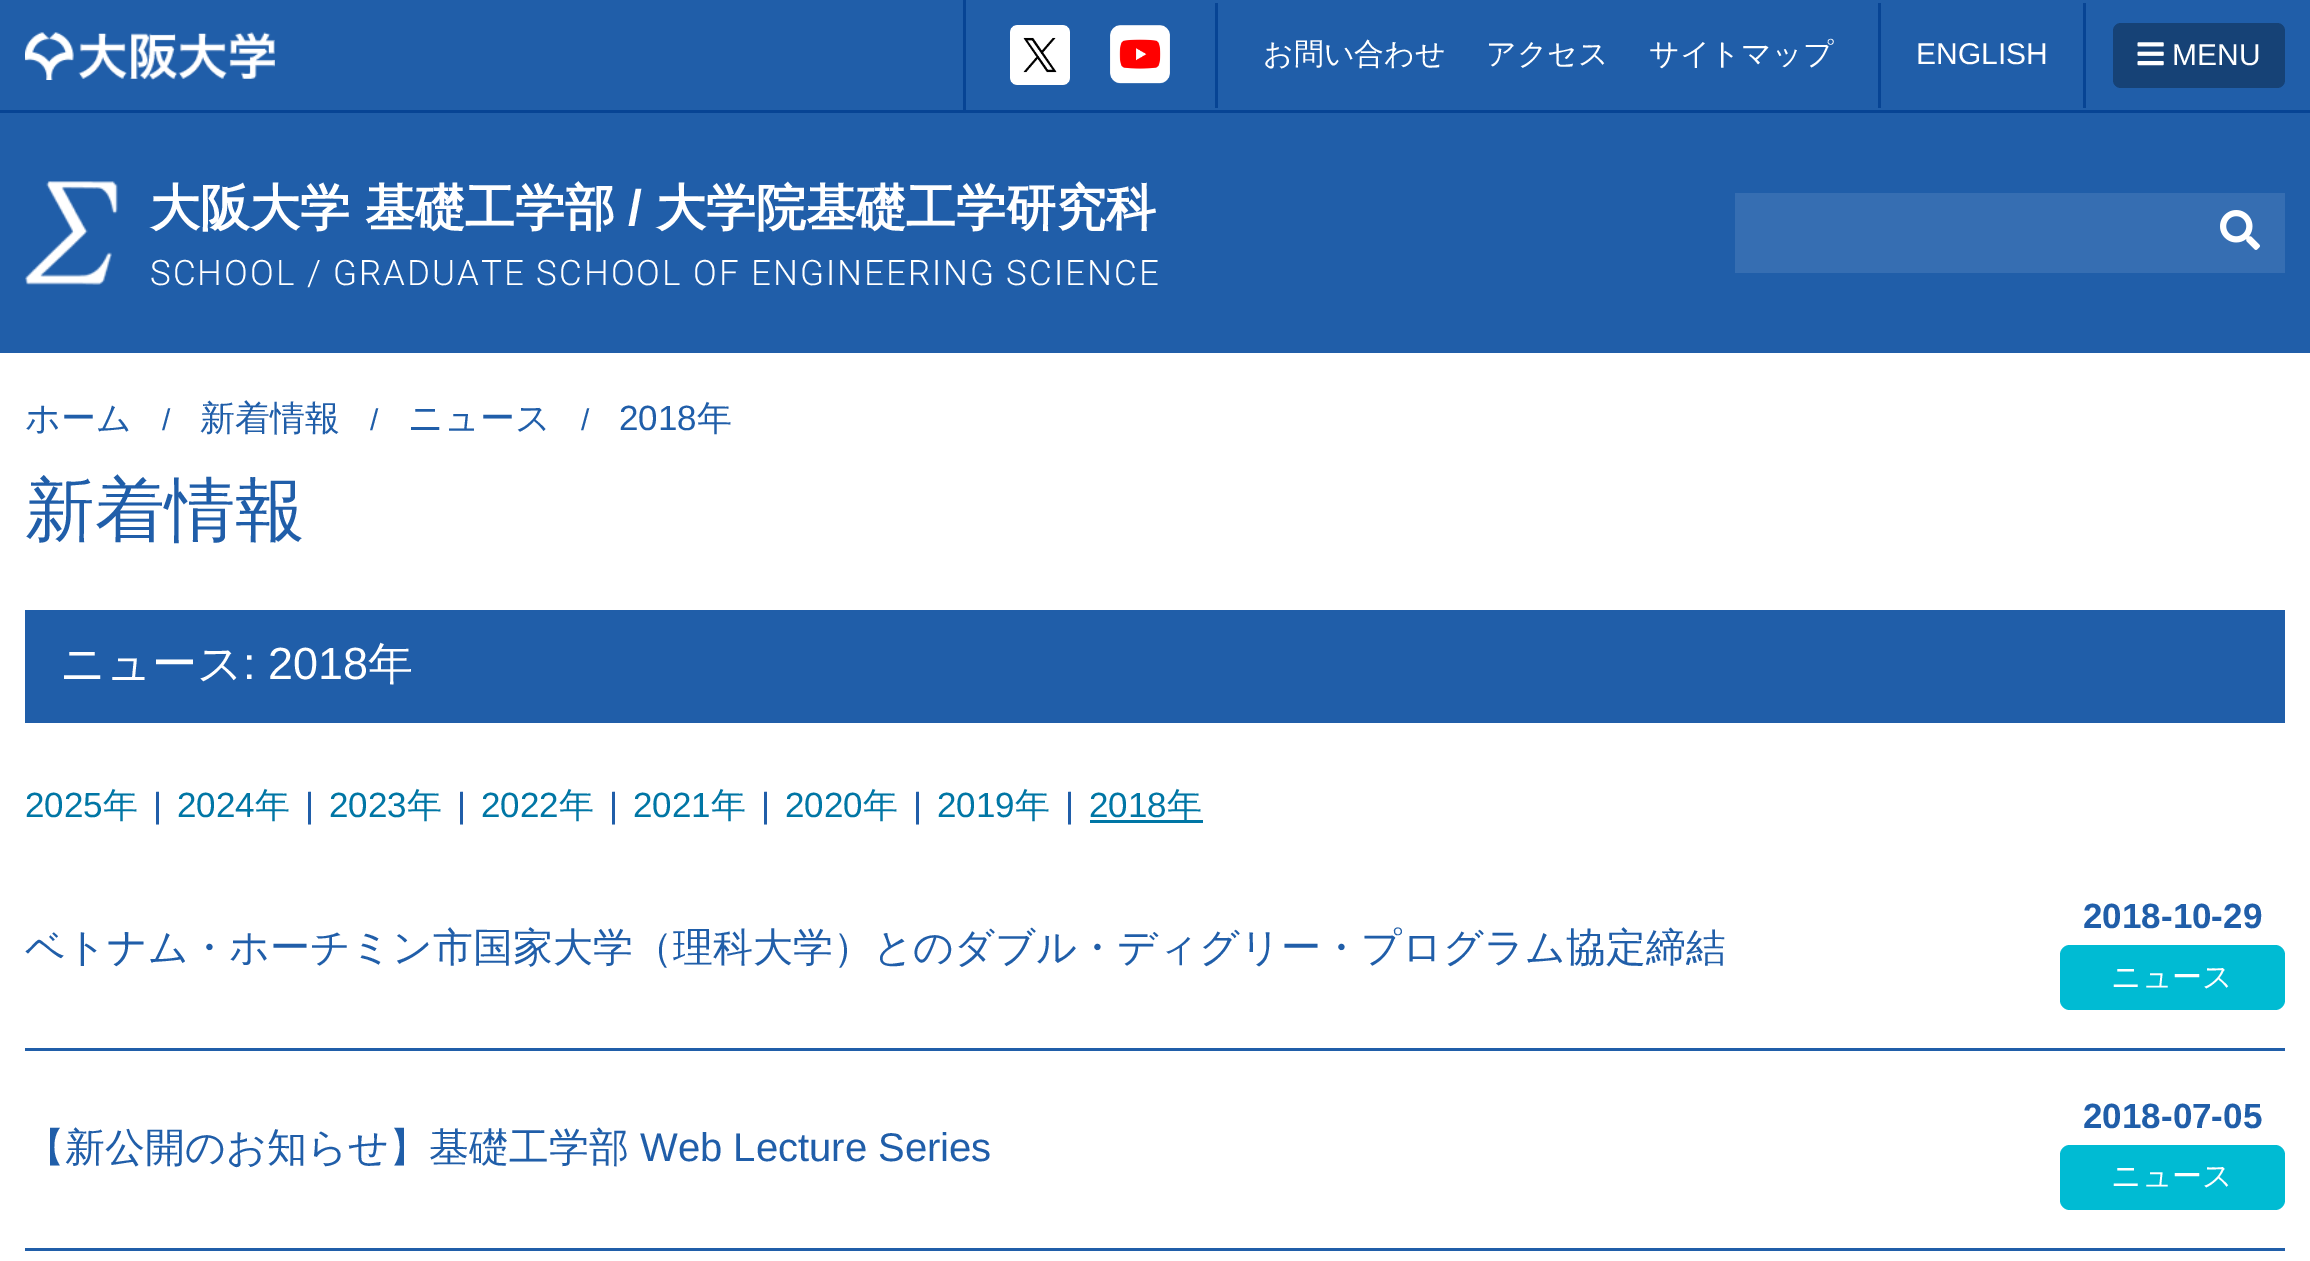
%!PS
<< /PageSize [2310 1261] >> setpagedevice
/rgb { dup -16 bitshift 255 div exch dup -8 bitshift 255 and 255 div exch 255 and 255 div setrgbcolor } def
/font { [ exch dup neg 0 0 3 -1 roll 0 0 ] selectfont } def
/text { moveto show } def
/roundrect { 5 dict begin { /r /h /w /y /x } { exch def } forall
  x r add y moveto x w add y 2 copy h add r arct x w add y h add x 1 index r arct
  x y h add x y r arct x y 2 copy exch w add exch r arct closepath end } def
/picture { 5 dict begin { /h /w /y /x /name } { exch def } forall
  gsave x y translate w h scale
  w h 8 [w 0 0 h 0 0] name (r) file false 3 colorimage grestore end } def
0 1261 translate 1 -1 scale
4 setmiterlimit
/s1 { /WenQuanYiZenHei-Medium 30 font 16#FFFFFF rgb } def
/s2 { /LiberationSans-Regular 30 font 16#FFFFFF rgb } def
/s3 { /WenQuanYiZenHei-Bold 50 font 16#FFFFFF rgb } def
/s4 { /LiberationSans-Bold 50 font 16#FFFFFF rgb } def
/s5 { /WenQuanYiZenHei-Medium 35 font 16#205EA9 rgb } def
/s6 { /LiberationSans-Regular 30 font 16#205EA9 rgb } def
/s7 { /LiberationSans-Regular 35 font 16#205EA9 rgb } def
/s8 { /WenQuanYiZenHei-Medium 70 font 16#205EA9 rgb } def
/s9 { /WenQuanYiZenHei-Medium 45 font 16#FFFFFF rgb } def
/s10 { /LiberationSans-Regular 45 font 16#FFFFFF rgb } def
/s11 { /LiberationSans-Regular 35 font 16#0076A5 rgb } def
/s12 { /WenQuanYiZenHei-Medium 35 font 16#0076A5 rgb } def
/s13 { /WenQuanYiZenHei-Medium 40 font 16#205EA9 rgb } def
/s14 { /LiberationSans-Bold 35 font 16#205EA9 rgb } def
/s15 { /LiberationSans-Regular 40 font 16#205EA9 rgb } def
16#FFFFFF rgb
0 0 2310 1261 rectfill
16#205EA9 rgb
0 0 2310 353 rectfill
16#074494 rgb
0 110 2310 3 rectfill
(pic1.raw) 25 32 250 48 picture
963 0 3 110 rectfill
(pic2.raw) 1010 25 60 60 picture
(pic3.raw) 1110 25 60 59 picture
1878 3 3 105 rectfill
1215 3 3 105 rectfill
s1
(お問い合わせ) 1263 64 text
(アクセス) 1486 64 text
(サイトマップ) 1649 64 text
16#074494 rgb
2083 3 3 105 rectfill
s2
(ENGLISH) 1916 64 text
16#164276 rgb
2113 23 172 65 8 roundrect fill
(pic4.raw) 2137 42 27 24 picture
s2
(MENU) 2172 65 text
(pic5.raw) 25 181 93 104 picture
s3
(大阪大学 基礎工学部) 150 225 text
s4
(/) 628 225 text
s3
(大学院基礎工学研究科) 656 225 text
/Roboto-Light 35 font
150 285 moveto 2 0 (SCHOOL / GRADUATE SCHOOL OF ENGINEERING SCIENCE) ashow
16#366EB2 rgb
1735 193 550 80 rectfill
(pic6.raw) 2220 210 40 40 picture
s5
(ホーム) 25 430 text
s6
(/) 162 430 text
s5
(新着情報) 200 430 text
s6
(/) 370 430 text
s5
(ニュース) 408 430 text
s6
(/) 581 430 text
s7
(2018) 619 430 text
s5
(年) 697 430 text
s8
(新着情報) 25 534 text
25 610 2260 113 rectfill
s9
(ニュース) 60 679 text
s10
(: 2018) 243 679 text
s9
(年) 368 679 text
s11
(2025) 25 817 text
s12
(年) 103 817 text
s7
(|) 153 817 text
s11
(2024) 177 817 text
s12
(年) 255 817 text
s7
(|) 305 817 text
s11
(2023) 329 817 text
s12
(年) 407 817 text
s7
(|) 457 817 text
s11
(2022) 481 817 text
s12
(年) 559 817 text
s7
(|) 609 817 text
s11
(2021) 633 817 text
s12
(年) 711 817 text
s7
(|) 761 817 text
s11
(2020) 785 817 text
s12
(年) 863 817 text
s7
(|) 913 817 text
s11
(2019) 937 817 text
s12
(年) 1015 817 text
s7
(|) 1065 817 text
s11
(2018) 1089 817 text
1090 820 113 3 rectfill
s12
(年) 1167 817 text
16#205EA9 rgb
25 1048 2260 3 rectfill
s13
(ベトナム・ホーチミン市国家大学（理科大学）とのダブル・ディグリー・プログラム協定締結) 25 961 text
s14
(2018-10-29) 2083 928 text
16#00BBD3 rgb
2060 945 225 65 10 roundrect fill
s1
(ニュース) 2111 987 text
16#205EA9 rgb
25 1248 2260 3 rectfill
s13
(【新公開のお知らせ】基礎工学部) 25 1161 text
s15
(Web Lecture Series) 640 1161 text
s14
(2018-07-05) 2083 1128 text
16#00BBD3 rgb
2060 1145 225 65 10 roundrect fill
s1
(ニュース) 2111 1186 text
showpage
